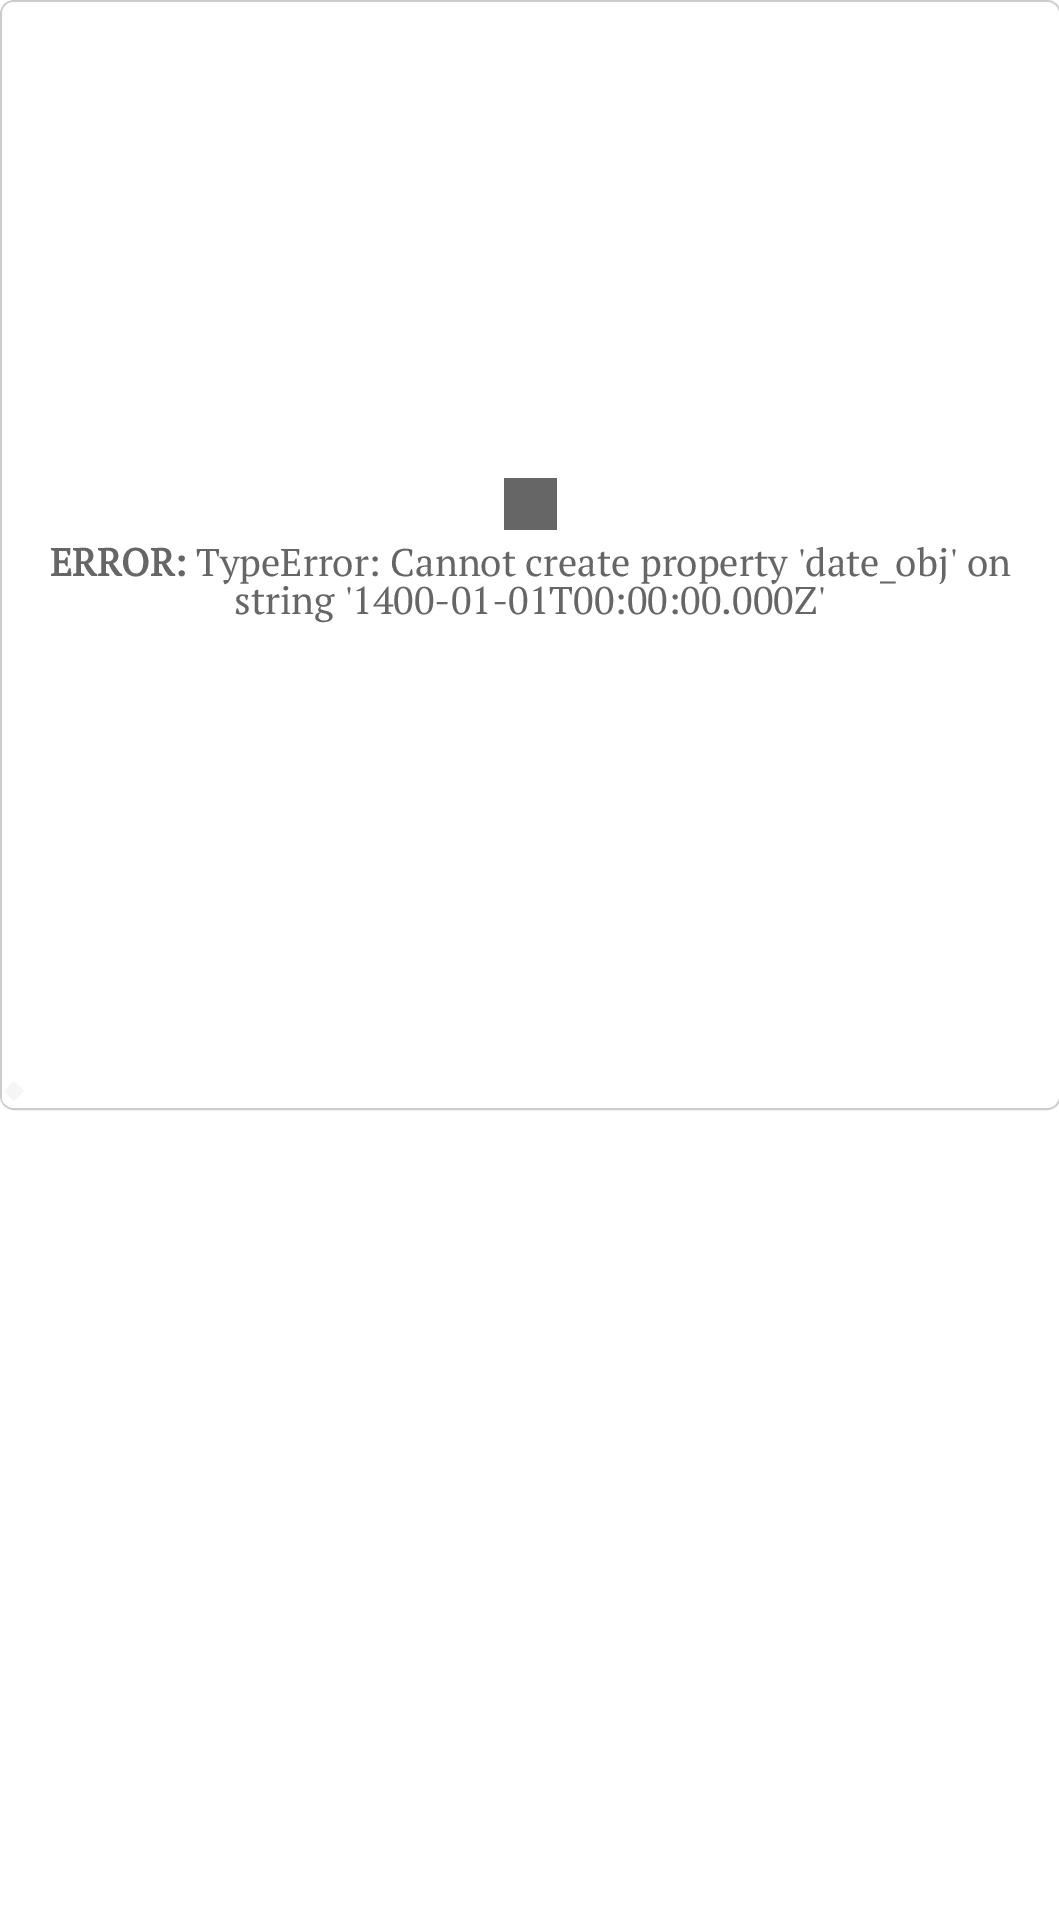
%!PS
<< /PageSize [1059 1926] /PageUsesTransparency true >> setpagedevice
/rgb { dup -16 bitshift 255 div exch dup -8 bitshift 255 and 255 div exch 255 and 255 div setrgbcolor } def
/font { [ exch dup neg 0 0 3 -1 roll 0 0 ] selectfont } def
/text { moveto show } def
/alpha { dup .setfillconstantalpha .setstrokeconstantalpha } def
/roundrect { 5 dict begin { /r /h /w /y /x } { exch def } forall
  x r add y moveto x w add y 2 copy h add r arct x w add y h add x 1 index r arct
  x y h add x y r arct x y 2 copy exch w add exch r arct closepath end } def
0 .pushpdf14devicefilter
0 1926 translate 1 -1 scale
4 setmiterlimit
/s1 { /PTSerif-Bold 38.5 font 16#666666 rgb } def
/s2 { /PTSerif-Regular 38.5 font 16#666666 rgb } def
16#FFFFFF rgb
0 0 1059 1926 rectfill
16#CCCCCC rgb
2 setlinewidth
1 1 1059 1108 13 roundrect stroke
gsave
2 2 1057 1106 12 roundrect clip newpath
0.85 alpha
16#FFFFFF rgb
2 1076 115 28 rectfill
grestore
14 1081 moveto 24 1091 lineto 14 1101 lineto 4 1091 lineto closepath fill
0.8 alpha
16#FFFFFF rgb
2 2 1057 1106 12 roundrect fill
1 alpha
16#666666 rgb
504 478 53 52 rectfill
s1
(ERROR:) 50 576 text
s2
(TypeError: Cannot create property 'date_obj' on) 196 576 text
(string '1400-01-01T00:00:00.000Z') 234 614 text
.poppdf14devicefilter showpage
